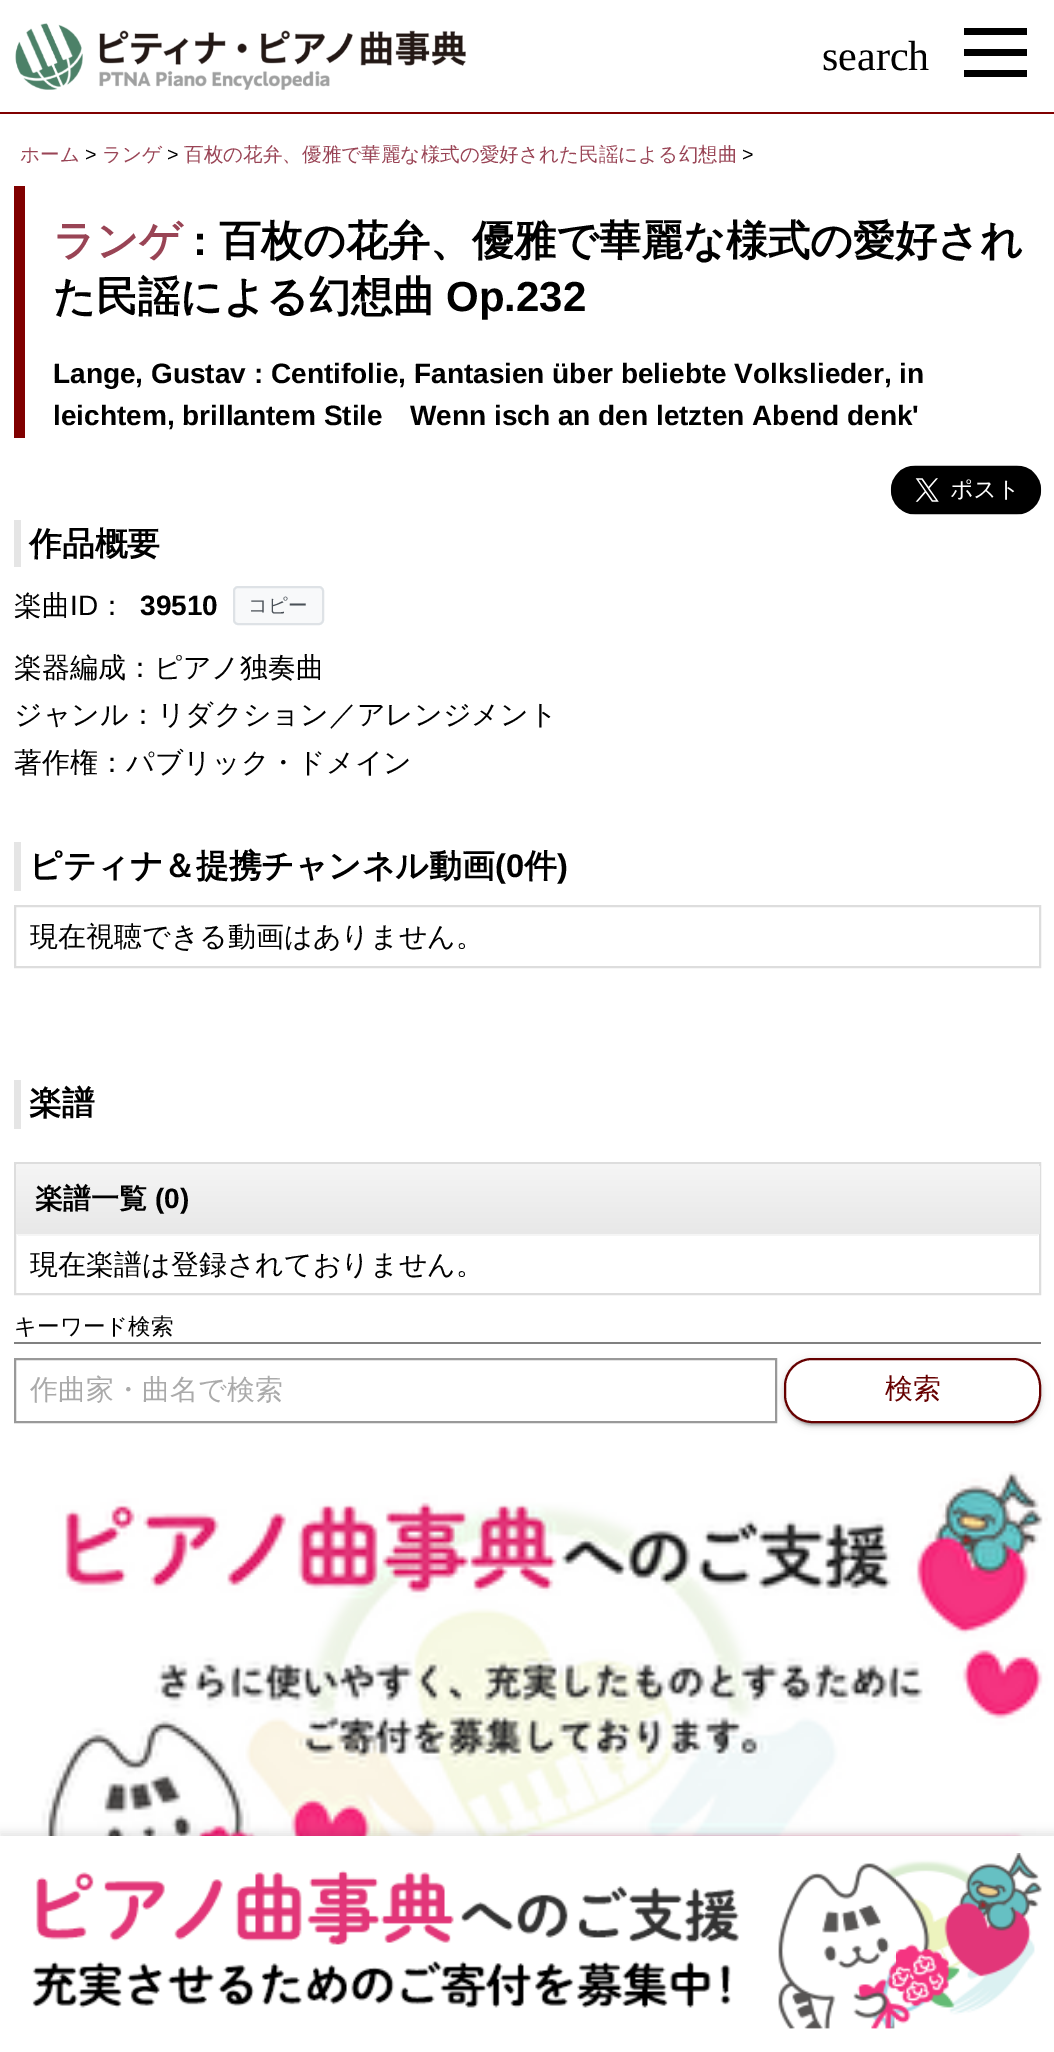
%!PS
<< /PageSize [1054 2052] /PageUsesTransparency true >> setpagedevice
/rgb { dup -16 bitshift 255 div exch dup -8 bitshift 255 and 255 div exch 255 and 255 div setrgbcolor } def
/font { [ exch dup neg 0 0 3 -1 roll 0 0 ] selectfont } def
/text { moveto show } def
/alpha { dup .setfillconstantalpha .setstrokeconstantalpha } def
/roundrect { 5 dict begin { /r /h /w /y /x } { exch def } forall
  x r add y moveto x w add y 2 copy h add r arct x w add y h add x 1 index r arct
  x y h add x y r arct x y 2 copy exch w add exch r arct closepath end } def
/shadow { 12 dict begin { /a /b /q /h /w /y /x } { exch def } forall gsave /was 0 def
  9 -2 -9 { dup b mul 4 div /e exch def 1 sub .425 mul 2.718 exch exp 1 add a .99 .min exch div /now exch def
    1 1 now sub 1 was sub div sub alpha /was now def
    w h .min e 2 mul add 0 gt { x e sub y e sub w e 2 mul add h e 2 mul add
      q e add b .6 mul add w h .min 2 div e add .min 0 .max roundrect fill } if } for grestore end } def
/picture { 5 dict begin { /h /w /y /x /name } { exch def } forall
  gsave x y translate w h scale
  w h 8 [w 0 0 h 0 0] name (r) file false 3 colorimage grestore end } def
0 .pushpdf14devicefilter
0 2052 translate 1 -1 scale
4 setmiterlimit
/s1 { /LiberationSerif-Regular 42 font 16#000000 rgb } def
/s2 { /WenQuanYiZenHei-Medium 19.6 font 16#994455 rgb } def
/s3 { /LiberationSans-Regular 19.6 font 16#000000 rgb } def
/s4 { /WenQuanYiZenHei-Bold 42 font 16#994455 rgb } def
/s5 { /LiberationSans-Bold 42 font 16#000000 rgb } def
/s6 { /WenQuanYiZenHei-Bold 42 font 16#000000 rgb } def
/s7 { /LiberationSans-Bold 28 font 16#000000 rgb } def
/s8 { /WenQuanYiZenHei-Bold 32.75 font 16#000000 rgb } def
/s9 { /WenQuanYiZenHei-Medium 28 font 16#000000 rgb } def
/s10 { /LiberationSans-Regular 28 font 16#000000 rgb } def
/s11 { /WenQuanYiZenHei-Medium 19.6 font 16#495057 rgb } def
/s12 { /LiberationSans-Bold 32.75 font 16#000000 rgb } def
/s13 { /WenQuanYiZenHei-Bold 28 font 16#000000 rgb } def
/s14 { /WenQuanYiZenHei-Medium 22.5 font 16#000000 rgb } def
/s15 { /WenQuanYiZenHei-Medium 28 font 16#AAAAAA rgb } def
/s16 { /WenQuanYiZenHei-Medium 28 font 16#660000 rgb } def
16#FFFFFF rgb
0 0 1054 2052 rectfill
(pic1.raw) 15 23 451 67 picture
s1
(search) 822 70 text
16#800000 rgb
0 112 1054 2 rectfill
16#000000 rgb
964 28 63 7 rectfill
964 49 63 7 rectfill
964 70 63 7 rectfill
s2
(ホーム) 20 161 text
s3
(>) 85 161 text
s2
(ランゲ) 102 161 text
s3
(>) 167 161 text
s2
(百枚の花弁、優雅で華麗な様式の愛好された民謡による幻想曲) 184 161 text
s3
(>) 742 161 text
16#800000 rgb
14 186 11 252 rectfill
s4
(ランゲ) 53 255 text
s5
(:) 193 255 text
s6
(百枚の花弁、優雅で華麗な様式の愛好され) 219 255 text
(た民謡による幻想曲) 53 311 text
s5
(Op.232) 446 311 text
s7
(Lange, Gustav : Centifolie, Fantasien über beliebte Volkslieder, in) 53 383 text
(leichtem, brillantem Stile) 53 425 text
(Wenn isch an den letzten Abend denk') 410 425 text
(pic2.raw) 890 465 152 50 picture
16#E5E5E5 rgb
14 520 7 47 rectfill
s8
(作品概要) 29 555 text
s9
(楽曲) 14 615 text
s10
(ID) 70 615 text
s9
(：) 98 615 text
s7
(39510) 140 615 text
16#F8F9FA rgb
234 587 89 37 4 roundrect gsave fill grestore
16#DEE2E6 rgb
2 setlinewidth
stroke
s11
(コピー) 248 612 text
s9
(楽器編成：ピアノ独奏曲) 14 677 text
(ジャンル：リダクション／アレンジメント) 14 724 text
(著作権：パブリック・ドメイン) 14 772 text
16#E5E5E5 rgb
14 842 7 49 rectfill
s8
(ピティナ＆提携チャンネル動画) 29 877 text
s12
(\(0) 495 877 text
s8
(件) 524 877 text
s12
(\)) 557 877 text
16#DDDDDD rgb
15 906 1025 61 rectstroke
s9
(現在視聴できる動画はありません。) 30 946 text
16#E5E5E5 rgb
14 1080 7 49 rectfill
s8
(楽譜) 29 1114 text
16#DDDDDD rgb
15 1163 1025 131 rectstroke
gsave
16 1164 1024 72 5 roundrect clip newpath
gsave 21 1164 moveto 1035 1164 lineto 1038 1164 1040 1166 1040 1169 curveto 1040 1234 lineto 16 1234 lineto 16 1169 lineto 16 1166 18 1164 21 1164 curveto closepath clip newpath
<< /ShadingType 2 /ColorSpace /DeviceRGB /Coords [528 1164 528 1234] /Extend [true true] /Function << /FunctionType 2 /Domain [0 1] /C0 [0.961 0.961 0.961] /C1 [0.91 0.91 0.91] /N 1 >> >> shfill grestore
gsave 16 1234 moveto 1040 1234 lineto 1040 1236 lineto 16 1236 lineto closepath clip newpath
<< /ShadingType 2 /ColorSpace /DeviceRGB /Coords [528 1234 528 1304] /Extend [true true] /Function << /FunctionType 2 /Domain [0 1] /C0 [0.961 0.961 0.961] /C1 [0.91 0.91 0.91] /N 1 >> >> shfill grestore
grestore
s13
(楽譜一覧) 35 1208 text
s7
(\(0\)) 155 1208 text
s9
(現在楽譜は登録されておりません。) 30 1274 text
16#808080 rgb
14 1342 1027 2 rectfill
s14
(キーワード検索) 14 1334 text
16#999999 rgb
15 1359 761 63 rectstroke
s15
(作曲家・曲名で検索) 30 1399 text
16#000000 rgb
788 1367 250 58 25 1 0.2 shadow
784 1360 257 65 28 4.5 0.12 shadow
784 1362 257 64 28 2 0.14 shadow
16#FFFFFF rgb
785 1359 255 63 27 roundrect gsave fill grestore
16#660000 rgb
stroke
(検索) 885 1398 text
(pic3.raw) 41 1471 1007 365 picture
16#000000 rgb
0 1832 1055 217 0 4.5 0.1 shadow
16#FFFFFF rgb
0 1836 1054 216 rectfill
(pic4.raw) 32 1853 1010 176 picture
.poppdf14devicefilter showpage
